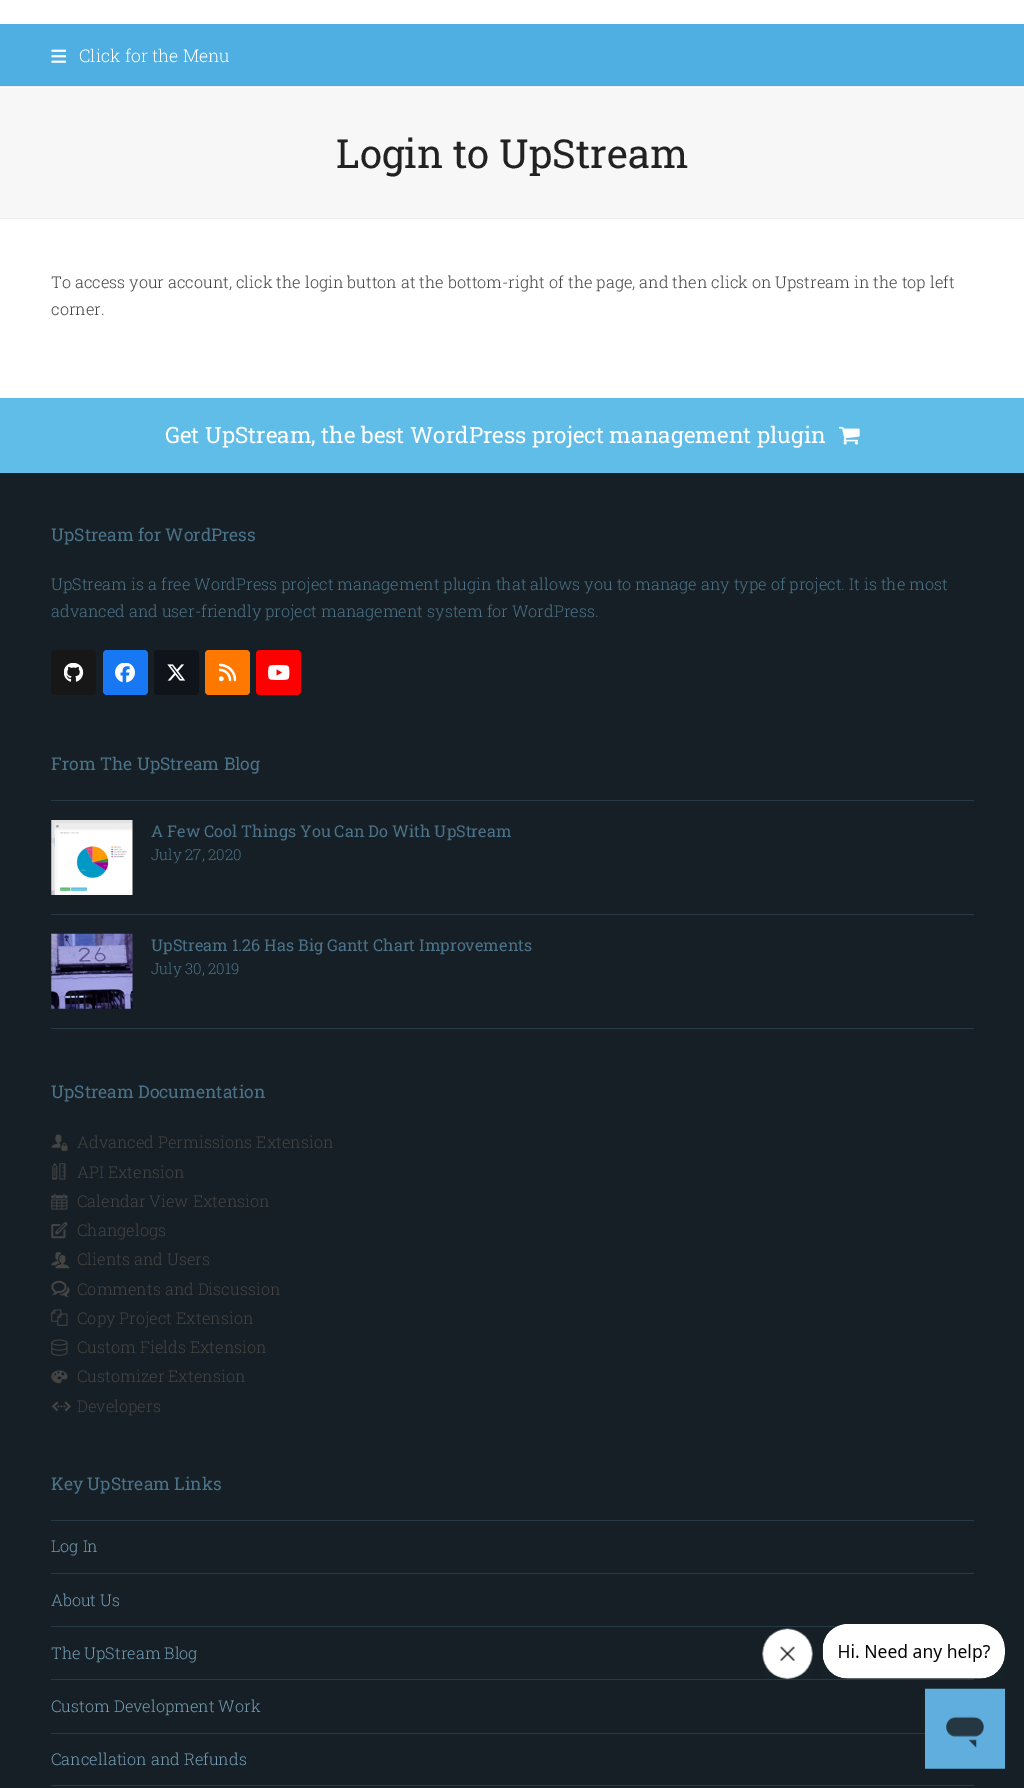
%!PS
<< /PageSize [1024 1788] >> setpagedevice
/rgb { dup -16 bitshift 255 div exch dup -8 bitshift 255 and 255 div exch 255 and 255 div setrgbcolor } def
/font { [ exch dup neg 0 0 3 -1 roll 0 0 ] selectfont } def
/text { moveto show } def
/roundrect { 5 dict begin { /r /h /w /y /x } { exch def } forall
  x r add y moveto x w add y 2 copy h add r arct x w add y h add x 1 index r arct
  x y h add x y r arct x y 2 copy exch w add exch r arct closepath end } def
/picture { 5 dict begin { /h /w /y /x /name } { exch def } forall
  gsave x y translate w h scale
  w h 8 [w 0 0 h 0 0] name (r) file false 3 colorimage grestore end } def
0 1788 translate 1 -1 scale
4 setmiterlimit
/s1 { /RobotoSlab-Light 17.5 font 16#FFFFFF rgb } def
/s2 { /RobotoSlab-Regular 40 font 16#222222 rgb } def
/s3 { /RobotoSlab-Light 16.25 font 16#444444 rgb } def
/s4 { /RobotoSlab-Regular 22.5 font 16#FFFFFF rgb } def
/s5 { /RobotoSlab-Regular 17.5 font 16#4B7288 rgb } def
/s6 { /RobotoSlab-Light 16.25 font 16#4B7288 rgb } def
/s7 { /RobotoSlab-Regular 16.25 font 16#4B7288 rgb } def
/s8 { /RobotoSlab-Light 15 font 16#4B7288 rgb } def
/s9 { /RobotoSlab-Light 16.25 font 16#759CB3 rgb } def
16#FFFFFF rgb
0 0 1024 1788 rectfill
16#50AFE2 rgb
0 24 1024 62 rectfill
(pic1.raw) 51 49 15 14 picture
s1
(Click for the Menu) 79 62 text
16#F7F7F7 rgb
0 88 1024 130 rectfill
16#EEEEEE rgb
0 86 1024 1 rectfill
0 218 1024 1 rectfill
s2
(Login to UpStream) 336 168 text
s3
(To access your account, click the login button at the bottom-right of the page, and then click on Upstream in the top left) 51 288 text
(corner.) 51 315 text
16#5FBDE8 rgb
0 398 1024 75 rectfill
s4
(Get UpStream, the best WordPress project management plugin) 165 443 text
(pic2.raw) 839 426 21 19 picture
16#151F25 rgb
0 473 1024 1315 rectfill
s5
(UpStream for WordPress) 51 541 text
s6
(UpStream is a free WordPress project management plugin that allows you to manage any type of project. It is the most) 51 590 text
(advanced and user-friendly project management system for WordPress.) 51 617 text
16#181717 rgb
51 650 45 45 4 roundrect fill
(pic3.raw) 64 663 20 19 picture
16#1877F2 rgb
103 650 45 45 4 roundrect fill
(pic4.raw) 115 663 20 20 picture
16#0F141A rgb
154 650 45 45 4 roundrect fill
(pic5.raw) 167 664 19 17 picture
16#FF7900 rgb
205 650 45 45 4 roundrect fill
(pic6.raw) 219 663 17 19 picture
16#FF0000 rgb
256 650 45 45 4 roundrect fill
(pic7.raw) 268 665 22 15 picture
s5
(From The UpStream Blog) 51 770 text
16#273B46 rgb
51 800 923 1 rectfill
51 914 923 1 rectfill
(pic8.raw) 51 820 82 75 picture
s7
(A Few Cool Things You Can Do With UpStream) 151 837 text
s8
(July 27, 2020) 151 860 text
16#273B46 rgb
51 1028 923 1 rectfill
(pic9.raw) 51 933 82 76 picture
s7
(UpStream 1.26 Has Big Gantt Chart Improvements) 151 951 text
s8
(July 30, 2019) 151 974 text
s5
(UpStream Documentation) 51 1098 text
(pic10.raw) 51 1134 17 17 picture
s3
(Advanced Permissions Extension) 77 1148 text
(pic11.raw) 52 1163 14 17 picture
(API Extension) 77 1178 text
(pic12.raw) 51 1193 17 17 picture
(Calendar View Extension) 77 1207 text
(pic13.raw) 51 1222 17 17 picture
(Changelogs) 77 1236 text
(pic14.raw) 51 1252 19 17 picture
(Clients and Users) 77 1265 text
(pic15.raw) 51 1280 19 17 picture
(Comments and Discussion) 77 1295 text
(pic16.raw) 51 1309 17 17 picture
(Copy Project Extension) 77 1324 text
(pic17.raw) 51 1339 17 17 picture
(Custom Fields Extension) 77 1353 text
(pic18.raw) 51 1370 17 14 picture
(Customizer Extension) 77 1382 text
(pic19.raw) 52 1401 19 11 picture
(Developers) 77 1412 text
s5
(Key UpStream Links) 51 1490 text
16#273B46 rgb
51 1520 923 1 rectfill
51 1573 923 1 rectfill
s9
(Log In) 51 1552 text
16#273B46 rgb
51 1626 787 1 rectfill
s9
(About Us) 51 1606 text
16#273B46 rgb
51 1679 923 1 rectfill
s9
(The UpStream Blog) 51 1659 text
16#273B46 rgb
51 1733 874 1 rectfill
s9
(Custom Development Work) 51 1712 text
16#273B46 rgb
51 1785 923 1 rectfill
s9
(Cancellation and Refunds) 51 1765 text
(pic20.raw) 762 1628 51 51 picture
(pic21.raw) 822 1624 183 55 picture
(pic22.raw) 925 1688 80 81 picture
showpage
